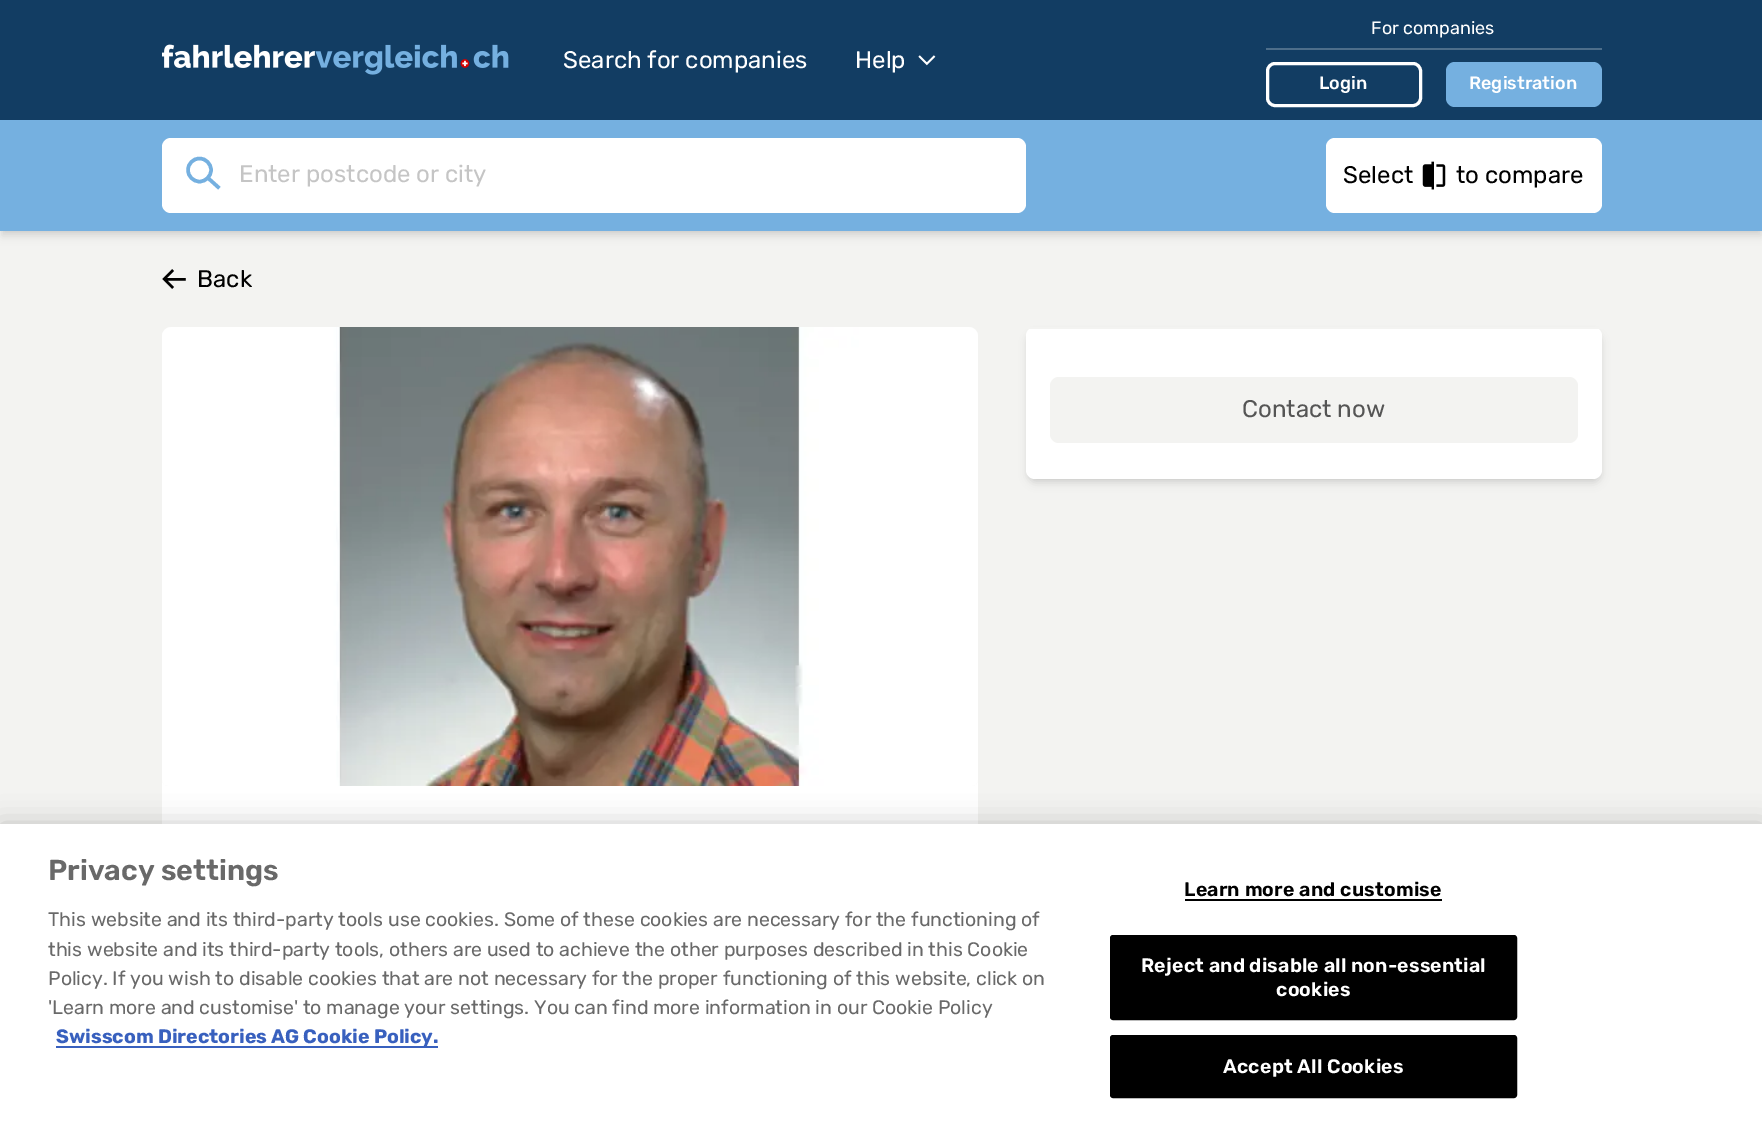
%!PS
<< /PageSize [1762 1127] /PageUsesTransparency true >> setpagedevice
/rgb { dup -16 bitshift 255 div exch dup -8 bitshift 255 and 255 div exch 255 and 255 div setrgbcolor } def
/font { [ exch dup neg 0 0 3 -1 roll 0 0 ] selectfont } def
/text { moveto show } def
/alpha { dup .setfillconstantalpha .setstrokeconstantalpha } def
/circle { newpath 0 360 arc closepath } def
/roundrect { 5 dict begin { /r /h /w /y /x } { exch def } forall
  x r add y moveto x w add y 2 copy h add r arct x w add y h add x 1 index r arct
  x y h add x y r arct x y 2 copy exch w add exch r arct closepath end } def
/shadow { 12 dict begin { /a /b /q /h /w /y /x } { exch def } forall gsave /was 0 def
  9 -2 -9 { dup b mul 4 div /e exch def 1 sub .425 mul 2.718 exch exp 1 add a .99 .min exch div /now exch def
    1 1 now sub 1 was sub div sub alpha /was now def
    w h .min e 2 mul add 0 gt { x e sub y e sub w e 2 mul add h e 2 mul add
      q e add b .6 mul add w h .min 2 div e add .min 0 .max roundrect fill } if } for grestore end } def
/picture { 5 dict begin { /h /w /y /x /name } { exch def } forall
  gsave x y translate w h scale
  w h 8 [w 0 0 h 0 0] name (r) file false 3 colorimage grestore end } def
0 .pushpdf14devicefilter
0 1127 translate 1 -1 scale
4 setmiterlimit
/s1 { /Rubik-Regular 24 font 16#FFFFFF rgb } def
/s2 { /Rubik-Regular 18 font 16#FFFFFF rgb } def
/s3 { /Rubik-Medium 18 font 16#FFFFFF rgb } def
/s4 { /Rubik-Regular 24 font 16#C5C5C5 rgb } def
/s5 { /Rubik-Regular 24 font 16#000000 rgb } def
/s6 { /Rubik-Regular 24 font 16#555555 rgb } def
/s7 { /Rubik-SemiBold 28.75 font 16#696969 rgb } def
/s8 { /Rubik-Regular 19.5 font 16#696969 rgb } def
/s9 { /Rubik-Bold 19.5 font 16#3860BE rgb } def
16#F3F3F1 rgb
0 0 1762 1127 rectfill
16#000000 rgb
3 126 1757 105 0 3 0.1 shadow
2 128 1759 108 0 4.5 0.1 shadow
16#123D63 rgb
0 0 1762 120 rectfill
(pic1.raw) 162 44 347 31 picture
s1
(Search for companies) 563 68 text
(Help) 855 68 text
(pic2.raw) 918 55 18 11 picture
16#4D6E8A rgb
1266 48 336 2 rectfill
s2
(For companies) 1371 34 text
3 setlinewidth
1267.5 63.5 153 42 7.5 roundrect stroke
s3
(Login) 1319 89 text
16#75B0E0 rgb
1446 62 156 45 9 roundrect fill
s3
(Registration) 1469 89 text
16#75B0E0 rgb
0 120 1762 111 rectfill
16#FFFFFF rgb
162 138 864 75 9 roundrect fill
16#75B0E0 rgb
3.5 setlinewidth
199.5 170 11.5 circle stroke
2 setlinecap
218 187 moveto 208 178 lineto stroke
s4
(Enter postcode or city) 239 182 text
16#FFFFFF rgb
1326 138 276 75 9 roundrect fill
s5
(Select) 1343 183 text
(pic3.raw) 1422 161 24 29 picture
(to compare) 1456 183 text
(pic4.raw) 162 269 24 20 picture
(Back) 197 287 text
16#FFFFFF rgb
162 327 816 741 9 roundrect fill
0.5 alpha
16#F3F3F1 rgb
171 327 moveto 969 327 lineto 974 327 978 331 978 336 curveto 978 780 lineto 978 783.5 975.5 786 972 786 curveto 168 786 lineto 164.5 786 162 783.5 162 780 curveto 162 336 lineto 162 331 166 327 171 327 curveto closepath fill
1 alpha
(pic5.raw) 162 327 816 459 picture
16#000000 rgb
1029 333 570 146 6 3 0.1 shadow
1028 335 573 148 8 4.5 0.1 shadow
16#FFFFFF rgb
1026 327 576 152 9 roundrect fill
16#F3F3F1 rgb
1026 327 576 2 rectfill
1050 377 528 66 9 roundrect fill
s6
(Contact now) 1242 417 text
16#000000 rgb
0 824 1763 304 0 13.5 0.2 shadow
16#FFFFFF rgb
0 824 1762 303 rectfill
s7
(Privacy settings) 48 880 text
s8
(This website and its third-party tools use cookies. Some of these cookies are necessary for the functioning of) 48 926 text
(this website and its third-party tools, others are used to achieve the other purposes described in this Cookie) 48 956 text
(Policy. If you wish to disable cookies that are not necessary for the proper functioning of this website, click on) 48 985 text
('Learn more and customise' to manage your settings. You can find more information in our Cookie Policy) 48 1014 text
16#3860BE rgb
56 1046 382 2 rectfill
s9
(Swisscom Directories AG Cookie Policy.) 56 1043 text
/Rubik-SemiBold 19.5 font
16#000000 rgb
1184 896 moveto 0.2 0 (Learn more and customise) ashow
1185 899 257 2 rectfill
1111 936 405 83 2 roundrect gsave fill grestore
2 setlinewidth
0 setlinecap
stroke
16#FFFFFF rgb
1141 972 moveto 0.2 0 (Reject and disable all non-essential) ashow
1276 996 moveto 0.2 0 (cookies) ashow
16#000000 rgb
1111 1036 405 61 2 roundrect gsave fill grestore
stroke
16#FFFFFF rgb
1223 1073 moveto 0.2 0 (Accept All Cookies) ashow
.poppdf14devicefilter showpage
